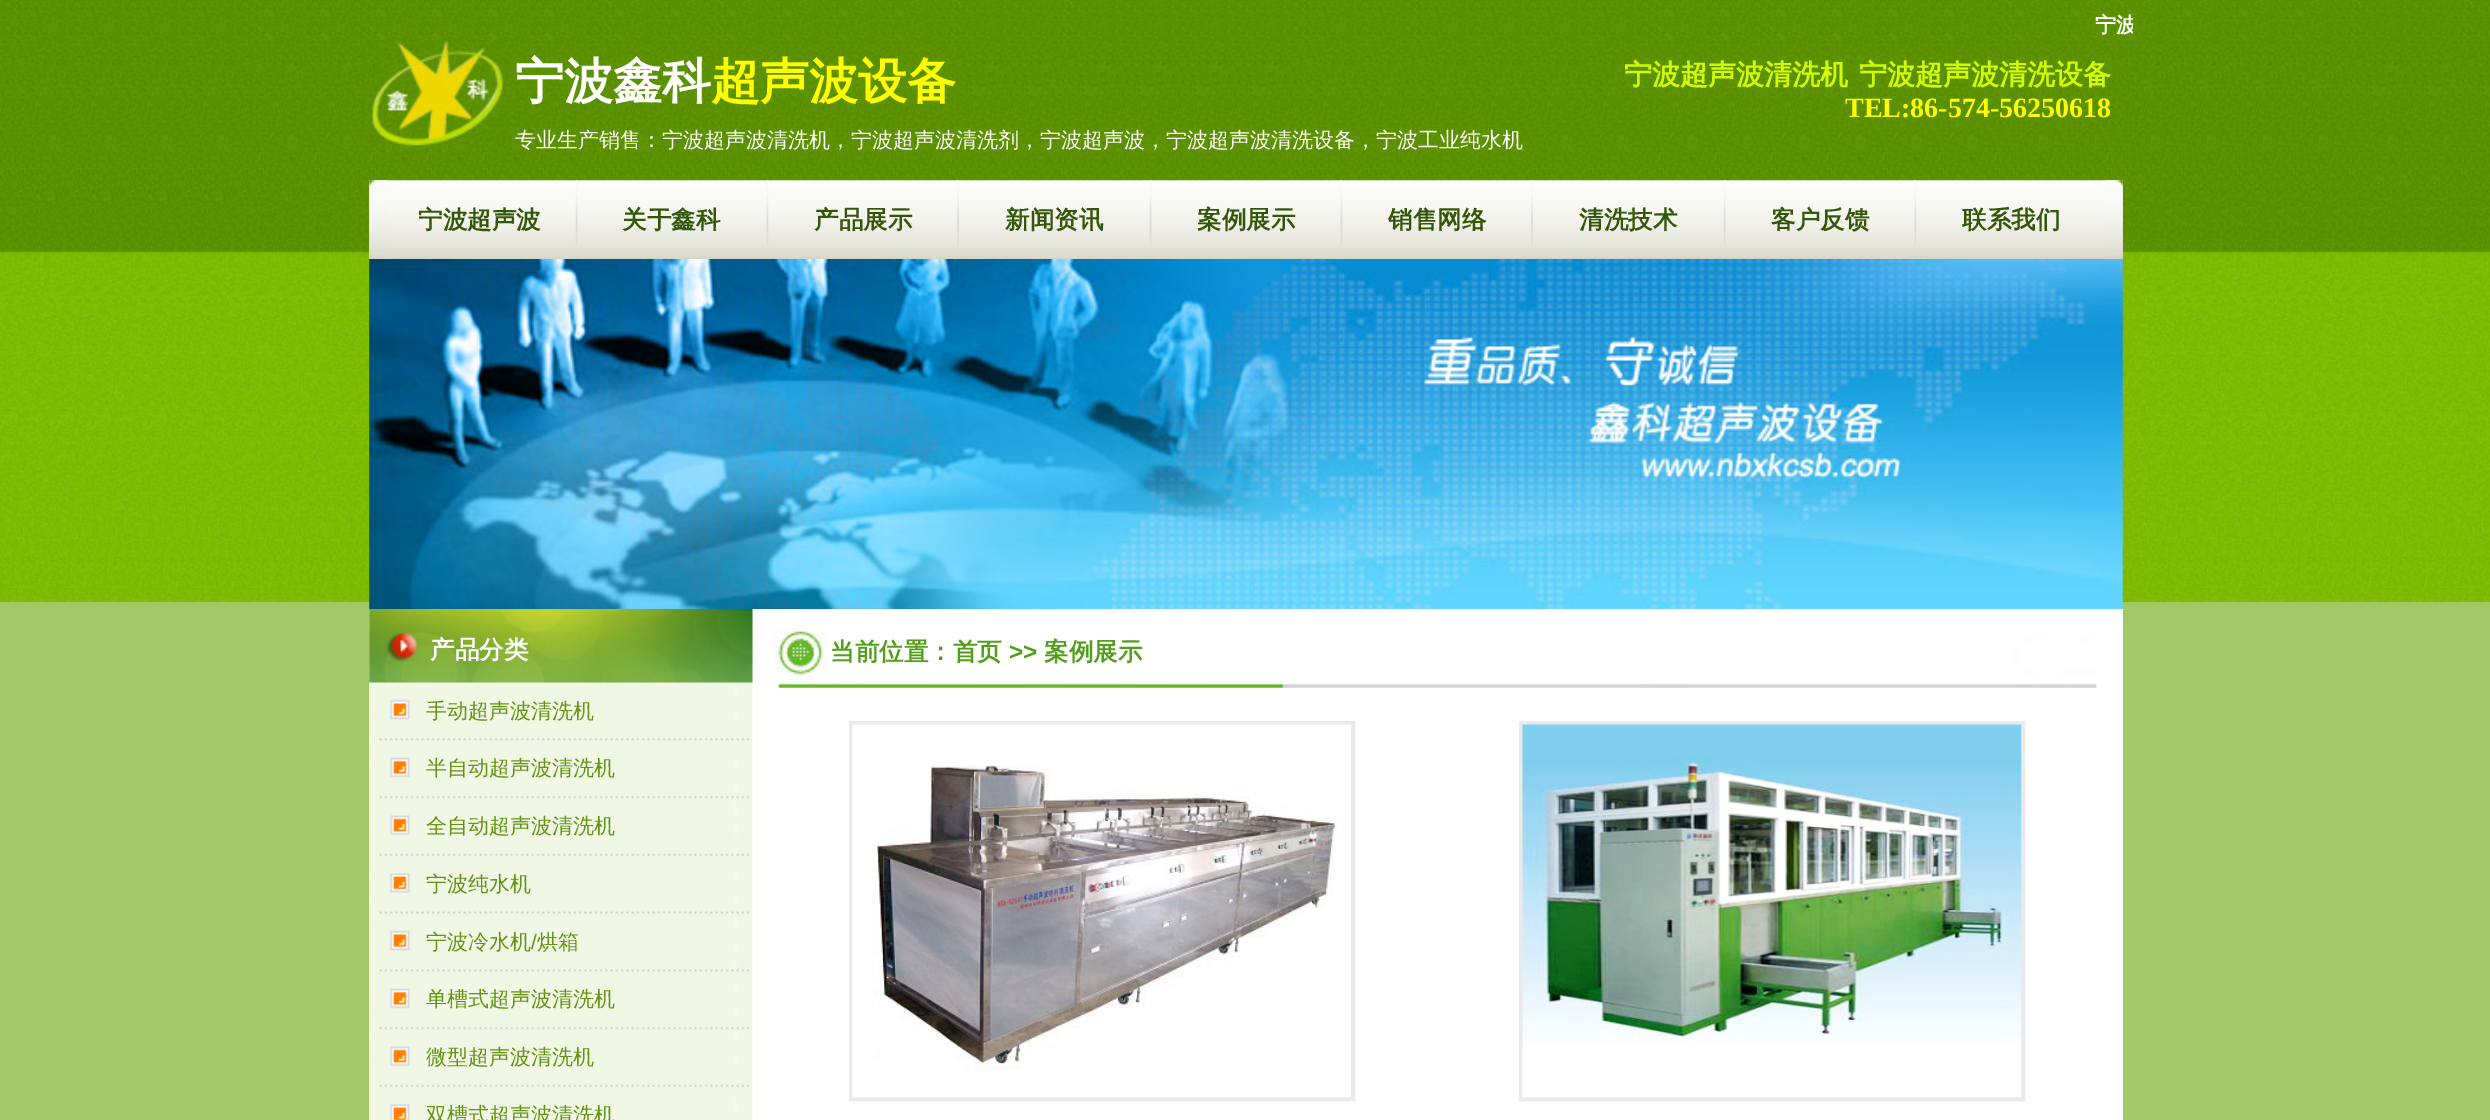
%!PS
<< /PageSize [2490 1120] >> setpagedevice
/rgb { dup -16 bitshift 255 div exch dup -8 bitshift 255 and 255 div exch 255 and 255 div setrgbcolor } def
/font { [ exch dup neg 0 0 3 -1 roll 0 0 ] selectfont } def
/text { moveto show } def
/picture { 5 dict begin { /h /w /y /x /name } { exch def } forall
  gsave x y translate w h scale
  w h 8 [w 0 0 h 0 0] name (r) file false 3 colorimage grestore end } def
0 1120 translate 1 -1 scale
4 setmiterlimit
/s1 { /WenQuanYiZenHei-Bold 21 font 16#FFFFFF rgb } def
/s2 { /WenQuanYiZenHei-Bold 49 font 16#FFFFFF rgb } def
/s3 { /WenQuanYiZenHei-Bold 49 font 16#FFFF00 rgb } def
/s4 { /WenQuanYiZenHei-Medium 21 font 16#FFFFFF rgb } def
/s5 { /WenQuanYiZenHei-Bold 28 font 16#D2FD00 rgb } def
/s6 { /LiberationSerif-Bold 28 font 16#FFFF00 rgb } def
/s7 { /WenQuanYiZenHei-Bold 24.5 font 16#335708 rgb } def
/s8 { /WenQuanYiZenHei-Bold 24.5 font 16#FFFFFF rgb } def
/s9 { /WenQuanYiZenHei-Medium 21 font 16#629313 rgb } def
/s10 { /LiberationSans-Regular 21 font 16#629313 rgb } def
/s11 { /WenQuanYiZenHei-Bold 24.5 font 16#519F18 rgb } def
/s12 { /LiberationSans-Bold 24.5 font 16#519F18 rgb } def
16#A0C867 rgb
0 0 2490 1120 rectfill
(pic1.raw) 0 0 2490 602 picture
gsave
380 7 1753 33 rectclip
s1
(宁波) 2095 32 text
grestore
(pic2.raw) 369 40 137 106 picture
s2
(宁波鑫科) 515 98 text
s3
(超声波设备) 711 98 text
s4
(专业生产销售：宁波超声波清洗机，宁波超声波清洗剂，宁波超声波，宁波超声波清洗设备，宁波工业纯水机) 515 147 text
s5
(宁波超声波清洗机) 1624 84 text
(宁波超声波清洗设备) 1859 84 text
s6
(TEL:86-574-56250618) 1845 117 text
(pic3.raw) 369 180 1754 79 picture
(pic4.raw) 369 180 18 79 picture
s7
(宁波超声波) 418 228 text
(pic5.raw) 575 180 3 65 picture
(关于鑫科) 622 228 text
(pic6.raw) 766 180 3 65 picture
(产品展示) 814 228 text
(pic7.raw) 957 180 2 65 picture
(新闻资讯) 1005 228 text
(pic8.raw) 1149 180 3 65 picture
(案例展示) 1197 228 text
(pic6.raw) 1340 180 3 65 picture
(销售网络) 1388 228 text
(pic7.raw) 1531 180 2 65 picture
(清洗技术) 1579 228 text
(pic9.raw) 1723 180 3 65 picture
(客户反馈) 1771 228 text
(pic6.raw) 1914 180 3 65 picture
(联系我们) 1962 228 text
(pic10.raw) 2105 180 18 79 picture
(pic11.raw) 369 259 1754 350 picture
16#FFFFFF rgb
369 609 1754 511 rectfill
(pic12.raw) 369 609 384 511 picture
(pic14.raw) 379 682 371 438 picture
(pic13.raw) 369 609 384 74 picture
(产品分类) 430 658 text
s9
(手动超声波清洗机) 426 718 text
(半自动超声波清洗机) 426 775 text
(全自动超声波清洗机) 426 833 text
(宁波纯水机) 426 891 text
(宁波冷水机) 426 949 text
s10
(/) 531 949 text
s9
(烘箱) 537 949 text
(单槽式超声波清洗机) 426 1006 text
(微型超声波清洗机) 426 1064 text
(双槽式超声波清洗机) 426 1122 text
(pic15.raw) 772 628 1325 60 picture
s11
(当前位置：首页) 830 660 text
s12
(>>) 1009 660 text
s11
(案例展示) 1044 660 text
16#EAEAEA rgb
4 setlinewidth
851 723 502 376 rectstroke
(pic16.raw) 852 724 499 374 picture
1521 723 502 376 rectstroke
(pic17.raw) 1522 724 500 374 picture
showpage
